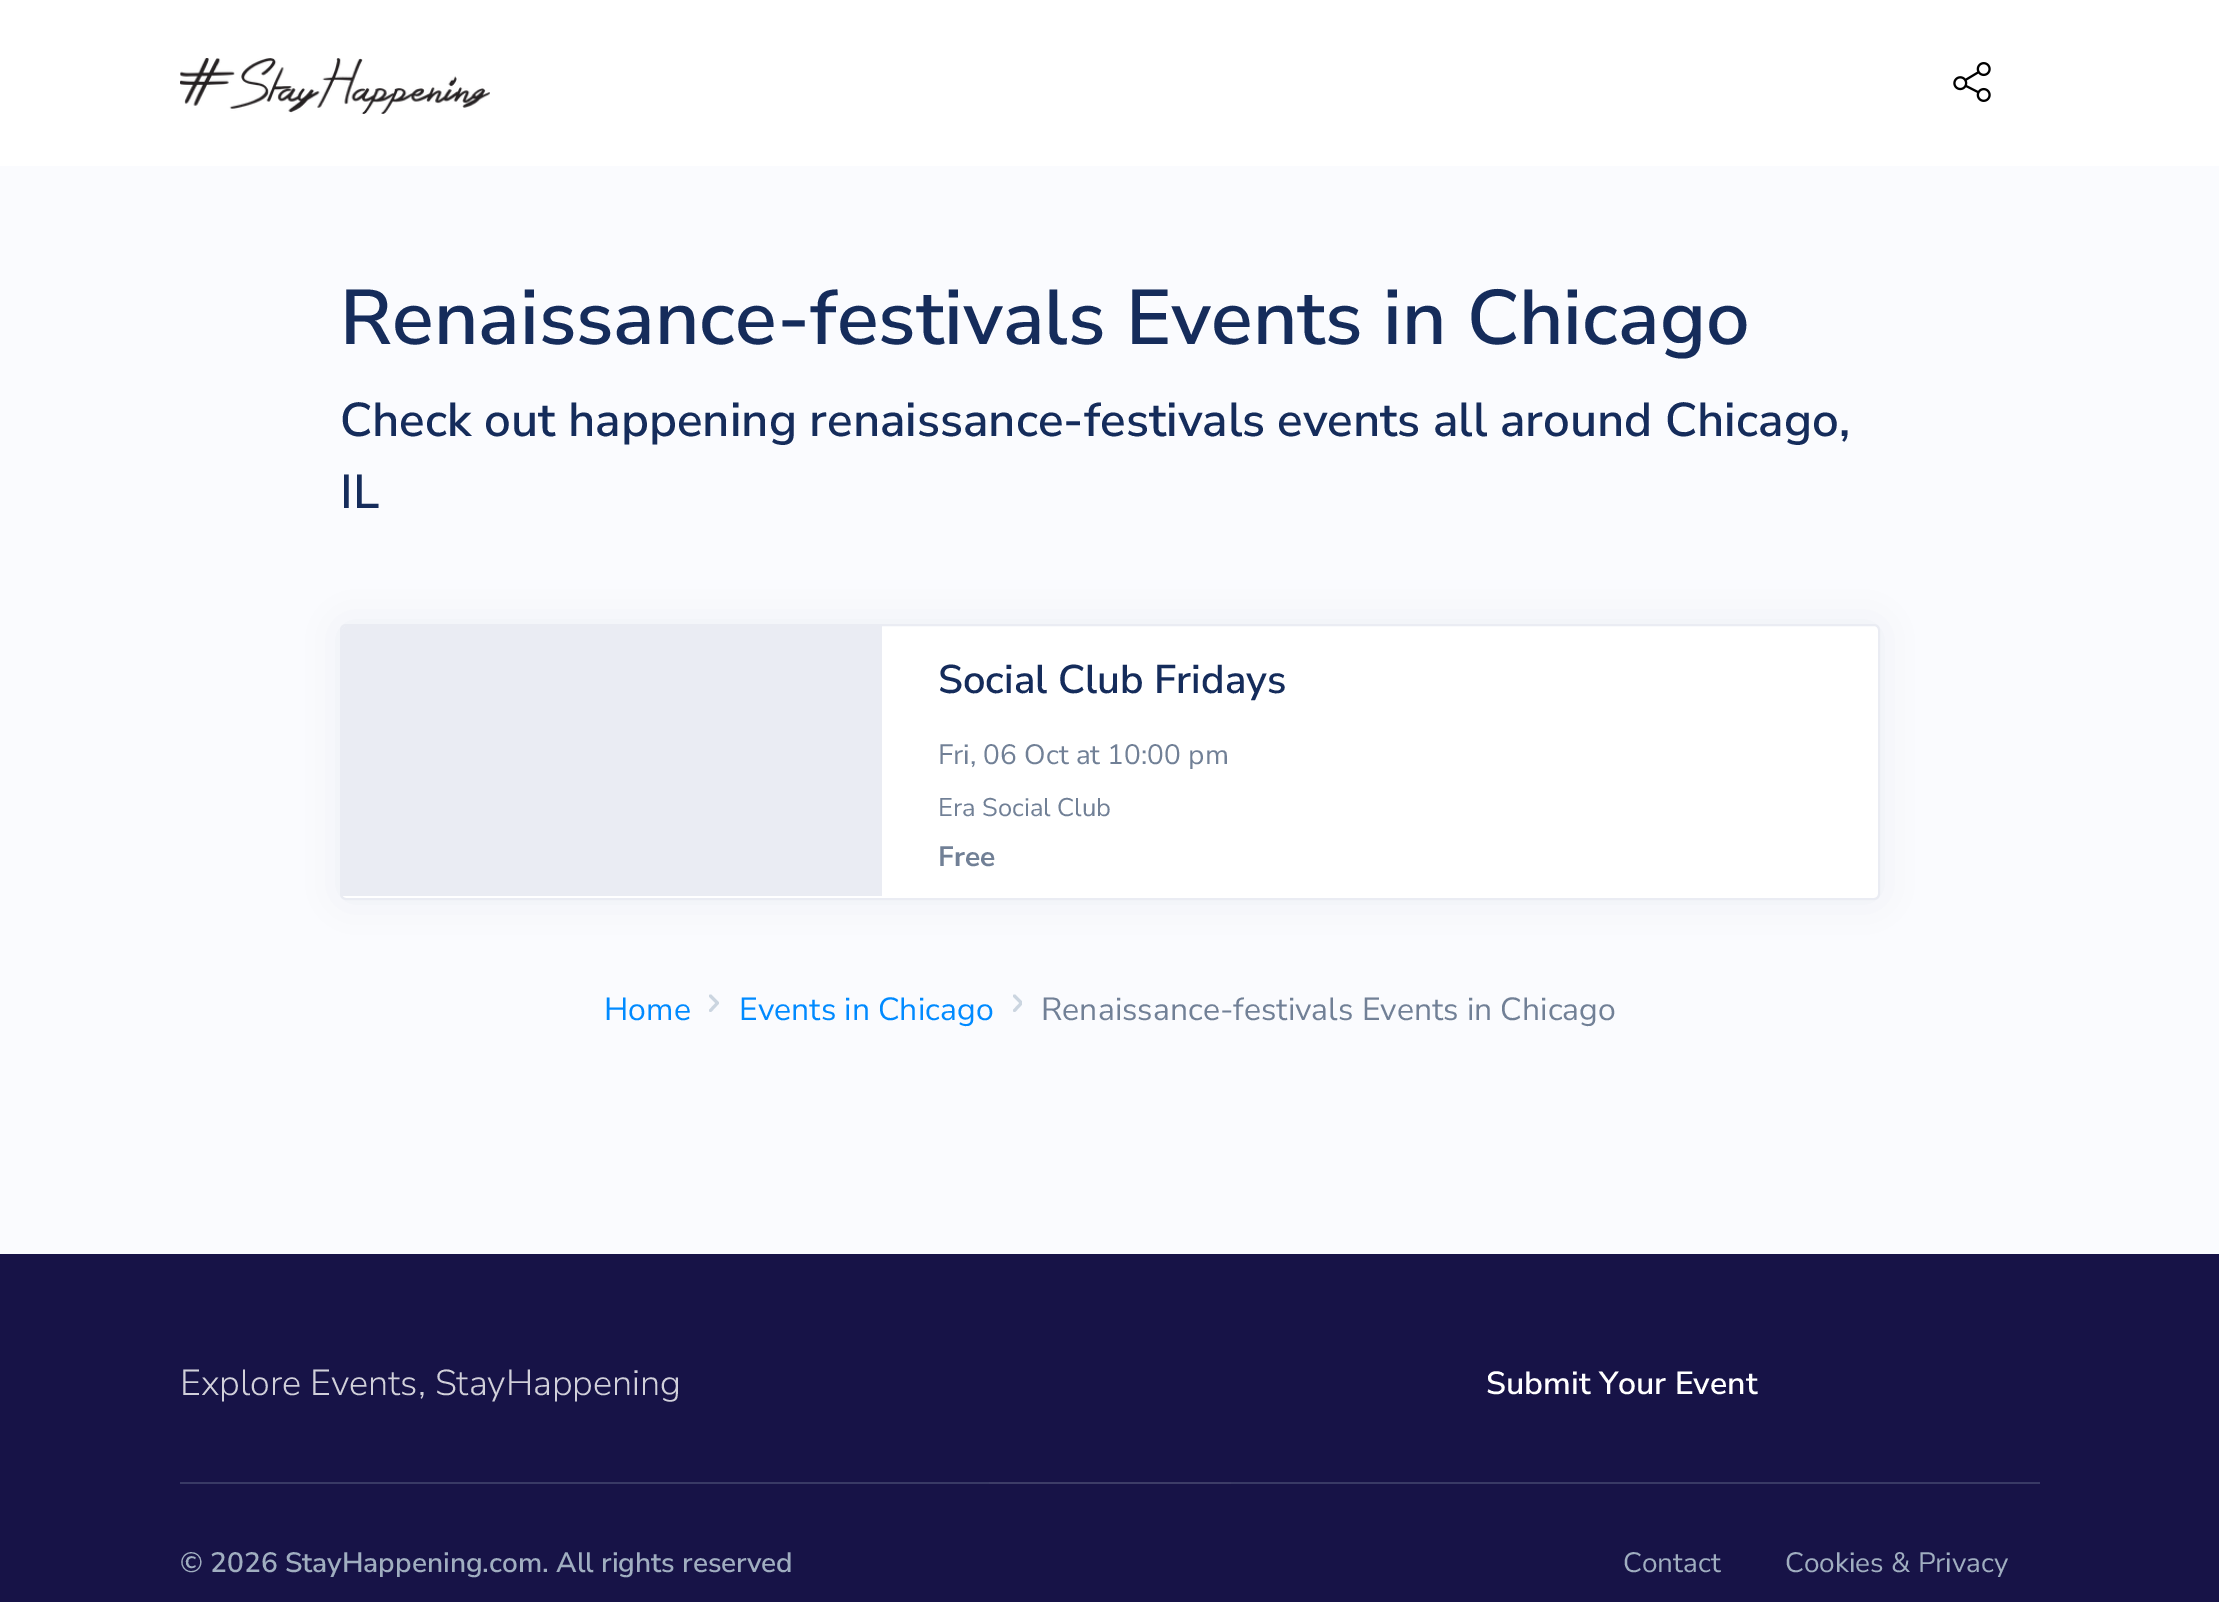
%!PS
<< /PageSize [2219 1602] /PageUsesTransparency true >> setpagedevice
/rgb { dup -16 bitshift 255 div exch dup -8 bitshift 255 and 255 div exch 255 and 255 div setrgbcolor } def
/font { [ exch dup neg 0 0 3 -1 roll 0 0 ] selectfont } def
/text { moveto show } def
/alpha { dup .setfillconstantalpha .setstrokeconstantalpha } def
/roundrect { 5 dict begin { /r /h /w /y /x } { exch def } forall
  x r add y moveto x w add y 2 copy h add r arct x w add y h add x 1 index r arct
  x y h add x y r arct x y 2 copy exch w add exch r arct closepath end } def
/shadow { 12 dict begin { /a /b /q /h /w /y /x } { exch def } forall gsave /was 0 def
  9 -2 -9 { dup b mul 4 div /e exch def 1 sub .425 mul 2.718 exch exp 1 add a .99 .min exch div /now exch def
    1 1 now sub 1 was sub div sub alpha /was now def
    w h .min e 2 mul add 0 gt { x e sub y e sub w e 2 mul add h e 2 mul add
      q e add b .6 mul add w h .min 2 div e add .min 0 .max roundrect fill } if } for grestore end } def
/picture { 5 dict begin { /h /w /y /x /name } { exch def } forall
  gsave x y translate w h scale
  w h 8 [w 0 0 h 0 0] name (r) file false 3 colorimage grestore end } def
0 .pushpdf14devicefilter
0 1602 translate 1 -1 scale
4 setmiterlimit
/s1 { /NunitoSans-SemiBold 77.25 font 16#152C5B rgb } def
/s2 { /NunitoSans-SemiBold 47.5 font 16#152C5B rgb } def
/s3 { /NunitoSans-SemiBold 40 font 16#152C5B rgb } def
/s4 { /NunitoSans-Regular 28 font 16#718096 rgb } def
/s5 { /NunitoSans-Regular 25.5 font 16#718096 rgb } def
/s6 { /NunitoSans-Bold 28 font 16#718096 rgb } def
/s7 { /NunitoSans-Regular 32 font 16#008AFF rgb } def
/s8 { /NunitoSans-Regular 32 font 16#718096 rgb } def
/s9 { /NunitoSans-Light 36 font 16#D1D0DA rgb } def
/s10 { /NunitoSans-SemiBold 32 font 16#FFFFFF rgb } def
/s11 { /NunitoSans-SemiBold 28 font 16#A0AEC0 rgb } def
/s12 { /NunitoSans-Regular 28 font 16#A0AEC0 rgb } def
16#FFFFFF rgb
0 0 2219 1602 rectfill
(pic1.raw) 180 58 310 56 picture
(pic2.raw) 1953 62 38 40 picture
16#FAFBFE rgb
0 166 2219 1088 rectfill
s1
(Renaissance-festivals Events in Chicago) 340 344 text
s2
(Check out happening renaissance-festivals) 340 436 text
(events all around Chicago,) 1277 436 text
(IL) 340 508 text
16#1F2D3D rgb
340 624 1540 276 6 20 0.05 shadow
16#FFFFFF rgb
341 625 1538 274 5 roundrect gsave fill grestore
16#EAECF3 rgb
2 setlinewidth
stroke
gsave
342 626 1536 272 4 roundrect clip newpath
346 626 moveto 882 626 lineto 882 896 lineto 342 896 lineto 342 630 lineto 342 628 344 626 346 626 curveto closepath fill
grestore
s3
(Social Club Fridays) 938 693 text
s4
(Fri, 06 Oct at 10:00 pm) 938 764 text
s5
(Era Social Club) 938 816 text
s6
(Free) 938 866 text
s7
(Home) 604 1020 text
16#CBD5E0 rgb
3 setlinewidth
1 setlinecap
1 setlinejoin
710.5 1010.5 moveto 717.5 1003 lineto 710.5 996 lineto stroke
s7
(Events in Chicago) 739 1020 text
gsave
1012 994 10 18 rectclip
16#CBD5E0 rgb
1014.5 1010.5 moveto 1021.5 1003 lineto 1014.5 996 lineto stroke
grestore
s8
(Renaissance-festivals Events in Chicago) 1041 1020 text
16#171347 rgb
0 1254 2219 348 rectfill
s9
(Explore Events, StayHappening) 180 1395 text
s10
(Submit Your Event) 1486 1394 text
16#393A65 rgb
180 1482 1860 2 rectfill
gsave 989 1482 moveto 1231 1482 lineto 1231 1484 lineto 989 1484 lineto closepath clip newpath 1110 1483 translate 1052 1.4 scale
<< /ShadingType 3 /ColorSpace /DeviceRGB /Coords [0 0 0 0 0 1] /Extend [true true] /Function << /FunctionType 3 /Domain [0 1] /Functions [<< /FunctionType 2 /Domain [0 1] /C0 [0.243 0.243 0.408] /C1 [0.224 0.227 0.396] /N 1 >> << /FunctionType 2 /Domain [0 1] /C0 [0.224 0.227 0.396] /C1 [0.224 0.227 0.396] /N 1 >>] /Bounds [0.75] /Encode [0 1 0 1] >> >> shfill grestore
s11
(© 2026 StayHappening.com. All rights reserved) 180 1572 text
s12
(Contact) 1623 1572 text
(Cookies & Privacy) 1785 1572 text
.poppdf14devicefilter showpage
